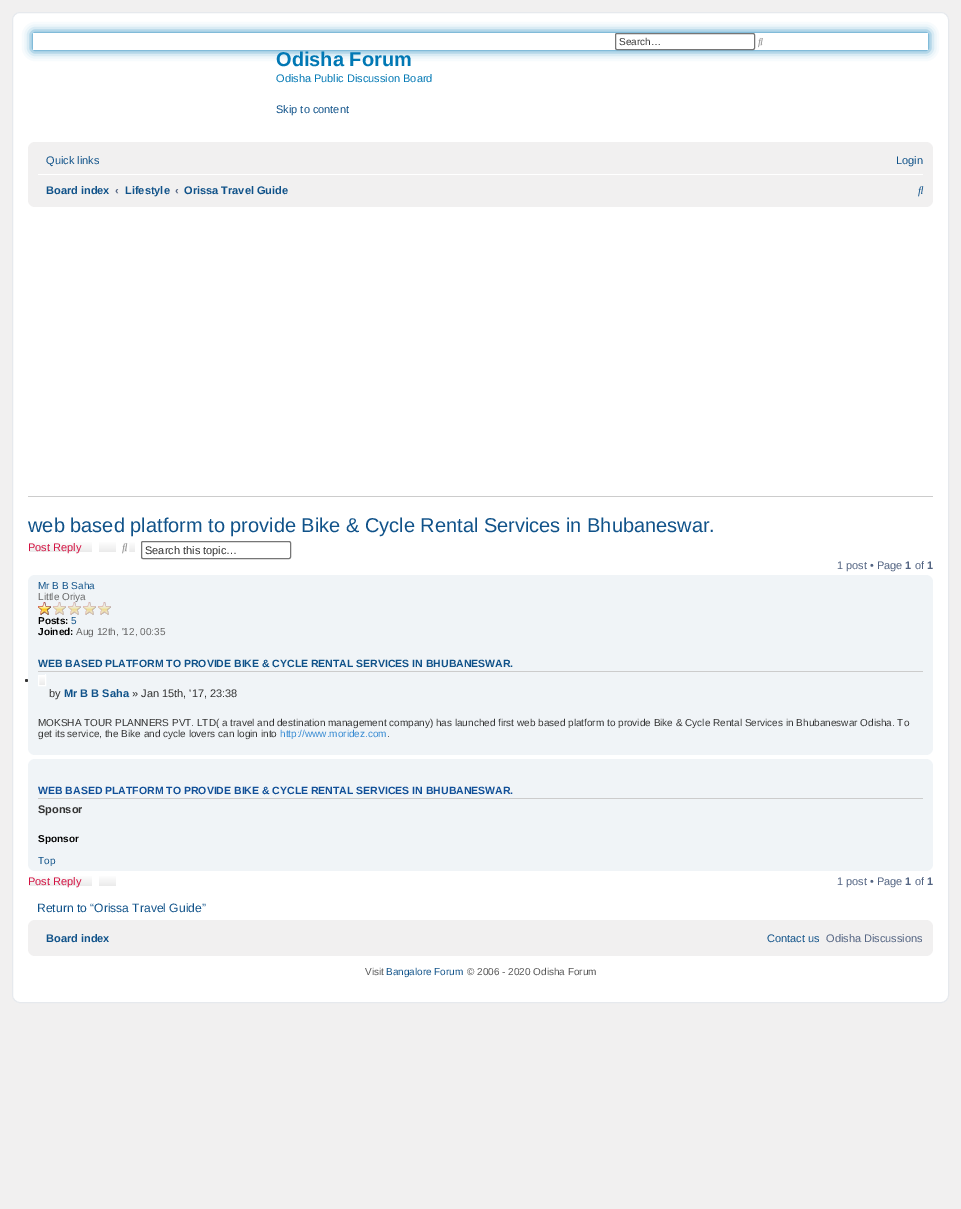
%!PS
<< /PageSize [961 1209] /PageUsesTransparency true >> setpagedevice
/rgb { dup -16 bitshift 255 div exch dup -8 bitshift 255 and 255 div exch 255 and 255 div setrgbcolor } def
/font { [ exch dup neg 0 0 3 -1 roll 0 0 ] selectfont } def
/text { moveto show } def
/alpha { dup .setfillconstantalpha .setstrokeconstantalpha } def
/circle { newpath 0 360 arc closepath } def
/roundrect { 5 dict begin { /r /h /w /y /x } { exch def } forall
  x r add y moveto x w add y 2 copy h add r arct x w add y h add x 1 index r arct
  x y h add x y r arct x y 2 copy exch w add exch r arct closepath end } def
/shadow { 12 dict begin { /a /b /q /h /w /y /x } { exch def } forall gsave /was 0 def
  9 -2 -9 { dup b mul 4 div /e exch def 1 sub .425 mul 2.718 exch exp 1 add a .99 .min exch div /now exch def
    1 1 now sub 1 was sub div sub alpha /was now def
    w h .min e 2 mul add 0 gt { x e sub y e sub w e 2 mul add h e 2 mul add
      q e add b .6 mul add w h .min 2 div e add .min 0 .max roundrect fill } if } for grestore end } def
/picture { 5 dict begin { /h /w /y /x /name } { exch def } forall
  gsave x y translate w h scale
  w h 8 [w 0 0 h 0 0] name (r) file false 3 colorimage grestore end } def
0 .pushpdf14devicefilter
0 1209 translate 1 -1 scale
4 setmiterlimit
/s1 { /LiberationSans-Regular 10 font 16#333333 rgb } def
/s2 { /LiberationSans-Bold 20 font 16#0178B4 rgb } def
/s3 { /LiberationSans-Regular 11 font 16#0178B4 rgb } def
/s4 { /LiberationSans-Regular 11 font 16#105289 rgb } def
/s5 { /LiberationSans-Bold 11 font 16#105289 rgb } def
/s6 { /LiberationSans-Bold 11 font 16#536482 rgb } def
/s7 { /LiberationSans-Regular 20 font 16#105289 rgb } def
/s8 { /LiberationSans-Regular 11 font 16#D31141 rgb } def
/s9 { /LiberationSans-Regular 11 font 16#333333 rgb } def
/s10 { /LiberationSans-Regular 11 font 16#536482 rgb } def
/s11 { /LiberationSans-Regular 10 font 16#105289 rgb } def
/s12 { /LiberationSans-Regular 10 font 16#666666 rgb } def
/s13 { /LiberationSans-Bold 10 font 16#000000 rgb } def
/s14 { /LiberationSans-Bold 10.5 font 16#105289 rgb } def
/s15 { /LiberationSans-Regular 10 font 16#368AD2 rgb } def
/s16 { /LiberationSans-Bold 10.5 font 16#115098 rgb } def
/s17 { /LiberationSans-Bold 11 font 16#333333 rgb } def
/s18 { /LiberationSans-Regular 12.1 font 16#105289 rgb } def
/s19 { /LiberationSans-Regular 10 font 16#555555 rgb } def
16#F1F0F0 rgb
0 0 961 1209 rectfill
16#FFFFFF rgb
12.5 12.5 936 990 7.5 roundrect gsave fill grestore
16#E6E9ED rgb
stroke
gsave
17 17 moveto 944 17 lineto 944 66 lineto 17 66 lineto closepath 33 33 moveto 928 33 lineto 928 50 lineto 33 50 lineto closepath eoclip newpath
16#0075B0 rgb
33 33 895 17 0 5 1 shadow
grestore
16#767676 rgb
615.5 33.5 139 16 1.5 roundrect stroke
s1
(Search…) 619 45 text
gsave 759 36 moveto 762 36 lineto 762 47 lineto 759 47 lineto closepath clip newpath
<< /ShadingType 2 /ColorSpace /DeviceRGB /Coords [761 36 761 47] /Extend [true true] /Function << /FunctionType 2 /Domain [0 1] /C0 [1 1 1] /C1 [0.914 0.914 0.914] /N 1 >> >> shfill grestore
16#FFFFFF rgb
758.5 36.5 4 10 rectstroke
(pic1.raw) 758 38 5 10 picture
s2
(Odisha Forum) 276 66 text
s3
(Odisha Public Discussion Board) 276 82 text
s4
(Skip to content) 276 113 text
16#F1F0F0 rgb
28 142 905 65 7 roundrect fill
s4
(Quick links) 46 164 text
(Login) 896 164 text
16#FFFFFF rgb
38 174 885 1 rectfill
s5
(Board index) 46 194 text
s6
(‹) 115 194 text
s5
(Lifestyle) 125 194 text
s6
(‹) 175 194 text
s5
(Orissa Travel Guide) 184 194 text
(pic2.raw) 918 186 6 11 picture
16#CCCCCC rgb
28 496 905 1 rectfill
s7
(web based platform to provide Bike & Cycle Rental Services in Bhubaneswar.) 28 532 text
gsave 29 542 moveto 92 542 lineto 92 552 lineto 29 552 lineto closepath clip newpath
<< /ShadingType 2 /ColorSpace /DeviceRGB /Coords [61 541 61 553] /Extend [true true] /Function << /FunctionType 2 /Domain [0 1] /C0 [1 1 1] /C1 [0.914 0.914 0.914] /N 1 >> >> shfill grestore
s8
(Post Reply) 28 551 text
gsave 99 542 moveto 116 542 lineto 116 552 lineto 99 552 lineto closepath clip newpath
<< /ShadingType 2 /ColorSpace /DeviceRGB /Coords [108 541 108 553] /Extend [true true] /Function << /FunctionType 2 /Domain [0 1] /C0 [1 1 1] /C1 [0.914 0.914 0.914] /N 1 >> >> shfill grestore
gsave 123 541 moveto 127 541 lineto 127 553 lineto 123 553 lineto closepath clip newpath
<< /ShadingType 2 /ColorSpace /DeviceRGB /Coords [125 541 125 553] /Extend [true true] /Function << /FunctionType 2 /Domain [0 1] /C0 [1 1 1] /C1 [0.914 0.914 0.914] /N 1 >> >> shfill grestore
16#FFFFFF rgb
122.5 541.5 5 11 rectstroke
(pic3.raw) 122 543 6 11 picture
gsave 129 541 moveto 135 541 lineto 135 553 lineto 129 553 lineto closepath clip newpath
<< /ShadingType 2 /ColorSpace /DeviceRGB /Coords [132 541 132 553] /Extend [true true] /Function << /FunctionType 2 /Domain [0 1] /C0 [1 1 1] /C1 [0.914 0.914 0.914] /N 1 >> >> shfill grestore
128.5 541.5 7 11 rectstroke
16#767676 rgb
141.5 541.5 149 17 1.5 roundrect stroke
s9
(Search this topic…) 145 554 text
s10
(1 post • Page) 837 569 text
s6
(1) 905 569 text
s10
(of) 915 569 text
s6
(1) 927 569 text
16#F0F4F7 rgb
28 575 905 180 7 roundrect fill
s11
(Mr B B Saha) 38 589 text
s12
(Little Oriya) 38 600 text
(pic4.raw) 38 602 73 13 picture
s13
(Posts:) 38 624 text
s11
(5) 71 624 text
s13
(Joined:) 38 635 text
s12
(Aug 12th, '12, 00:35) 76 635 text
16#CCCCCC rgb
38 671 885 1 rectfill
s14
(WEB BASED PLATFORM TO PROVIDE BIKE & CYCLE RENTAL SERVICES IN BHUBANESWAR.) 38 667 text
16#FFFFFF rgb
45 674 1 1 rectfill
gsave 39 675 moveto 45 675 lineto 45 686 lineto 39 686 lineto closepath clip newpath
<< /ShadingType 2 /ColorSpace /DeviceRGB /Coords [42 675 42 686] /Extend [true true] /Function << /FunctionType 2 /Domain [0 1] /C0 [1 1 1] /C1 [0.914 0.914 0.914] /N 1 >> >> shfill grestore
38.5 675.5 7 10 rectstroke
16#333333 rgb
26.5 680.5 1.5 circle fill
s9
(by) 49 697 text
s5
(Mr B B Saha) 64 697 text
s9
(» Jan 15th, '17, 23:38) 132 697 text
s1
(MOKSHA TOUR PLANNERS PVT. LTD\( a travel and destination management company\) has launched first web based platform to provide Bike & Cycle Rental Services in Bhubaneswar Odisha. To) 38 726 text
(get its service, the Bike and cycle lovers can login into) 38 737 text
s15
(http://www.moridez.com) 280 737 text
s1
(.) 387 737 text
16#F0F4F7 rgb
28 759 905 112 7 roundrect fill
16#CCCCCC rgb
38 798 885 1 rectfill
s16
(WEB BASED PLATFORM TO PROVIDE BIKE & CYCLE RENTAL SERVICES IN BHUBANESWAR.) 38 794 text
s17
(Sponsor) 38 813 text
s13
(Sponsor) 38 842 text
s11
(Top) 38 864 text
gsave 29 876 moveto 92 876 lineto 92 886 lineto 29 886 lineto closepath clip newpath
<< /ShadingType 2 /ColorSpace /DeviceRGB /Coords [61 875 61 887] /Extend [true true] /Function << /FunctionType 2 /Domain [0 1] /C0 [1 1 1] /C1 [0.914 0.914 0.914] /N 1 >> >> shfill grestore
s8
(Post Reply) 28 885 text
gsave 99 876 moveto 116 876 lineto 116 886 lineto 99 886 lineto closepath clip newpath
<< /ShadingType 2 /ColorSpace /DeviceRGB /Coords [108 875 108 887] /Extend [true true] /Function << /FunctionType 2 /Domain [0 1] /C0 [1 1 1] /C1 [0.914 0.914 0.914] /N 1 >> >> shfill grestore
s10
(1 post • Page) 837 885 text
s6
(1) 905 885 text
s10
(of) 915 885 text
s6
(1) 927 885 text
s18
(Return to “Orissa Travel Guide”) 37 912 text
16#F1F0F0 rgb
28 920 905 36 7 roundrect fill
s5
(Board index) 46 942 text
s4
(Contact us) 767 942 text
s10
(Odisha Discussions) 826 942 text
s19
(Visit) 365 975 text
s11
(Bangalore Forum) 386 975 text
s19
(© 2006 - 2020 Odisha Forum) 467 975 text
.poppdf14devicefilter showpage
